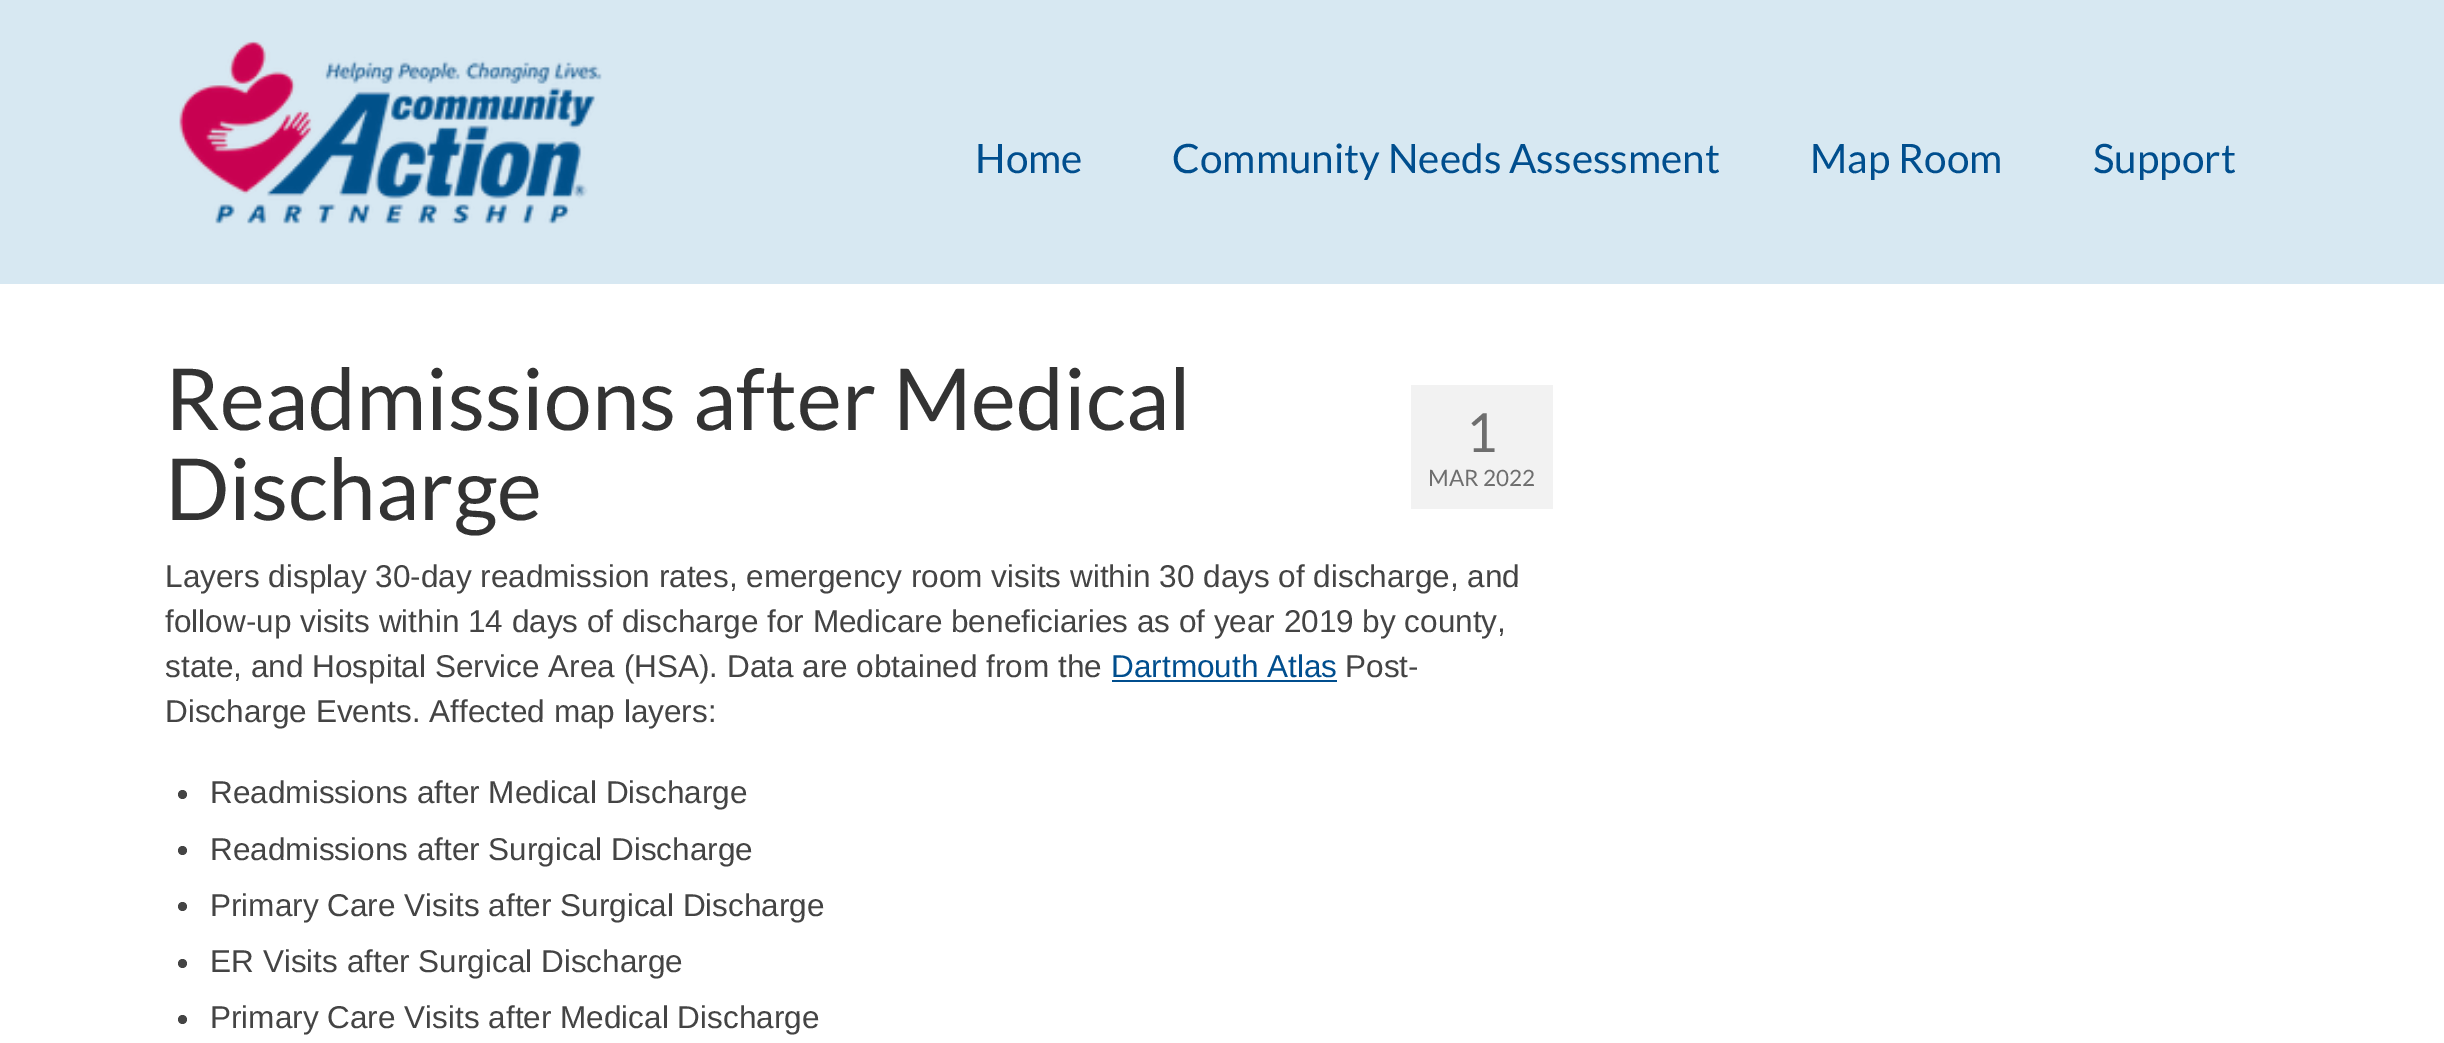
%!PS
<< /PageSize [2444 1043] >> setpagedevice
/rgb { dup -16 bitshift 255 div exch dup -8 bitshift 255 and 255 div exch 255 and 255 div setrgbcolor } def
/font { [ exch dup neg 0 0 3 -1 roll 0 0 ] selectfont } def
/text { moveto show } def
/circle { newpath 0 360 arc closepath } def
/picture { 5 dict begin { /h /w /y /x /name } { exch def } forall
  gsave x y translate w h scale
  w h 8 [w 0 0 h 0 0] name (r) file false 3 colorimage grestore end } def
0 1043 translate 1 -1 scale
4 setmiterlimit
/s1 { /Lato-Regular 40.5 font 16#004E8E rgb } def
/s2 { /Lato-Regular 85.5 font 16#333333 rgb } def
/s3 { /Lato-Regular 54 font 16#6E6E6E rgb } def
/s4 { /Lato-Regular 22.5 font 16#6E6E6E rgb } def
/s5 { /LiberationSans-Regular 31.5 font 16#444444 rgb } def
/s6 { /LiberationSans-Regular 31.5 font 16#004E8E rgb } def
16#FFFFFF rgb
0 0 2444 1043 rectfill
16#D7E8F2 rgb
0 0 2444 284 rectfill
(pic1.raw) 179 40 423 184 picture
s1
(Home) 975 173 text
(Community Needs Assessment) 1172 173 text
(Map Room) 1810 173 text
(Support) 2093 173 text
s2
(Readmissions after Medical) 165 430 text
(Discharge) 165 520 text
16#F2F2F2 rgb
1411 385 142 124 rectfill
s3
(1) 1466 452 text
s4
(MAR 2022) 1428 486 text
s5
(Layers display 30-day readmission rates, emergency room visits within 30 days of discharge, and) 165 587 text
(follow-up visits within 14 days of discharge for Medicare beneficiaries as of year 2019 by county,) 165 632 text
(state, and Hospital Service Area \(HSA\). Data are obtained from the) 165 677 text
s6
(Dartmouth Atlas) 1111 677 text
1112 680 225 2 rectfill
s5
(Post-) 1345 677 text
(Discharge Events. Affected map layers:) 165 722 text
182.5 794.5 4.5 circle fill
(Readmissions after Medical Discharge) 210 803 text
182.5 850.5 4.5 circle fill
(Readmissions after Surgical Discharge) 210 860 text
182.5 906.5 4.5 circle fill
(Primary Care Visits after Surgical Discharge) 210 916 text
182.5 963.5 4.5 circle fill
(ER Visits after Surgical Discharge) 210 972 text
182.5 1019.5 4.5 circle fill
(Primary Care Visits after Medical Discharge) 210 1028 text
showpage
